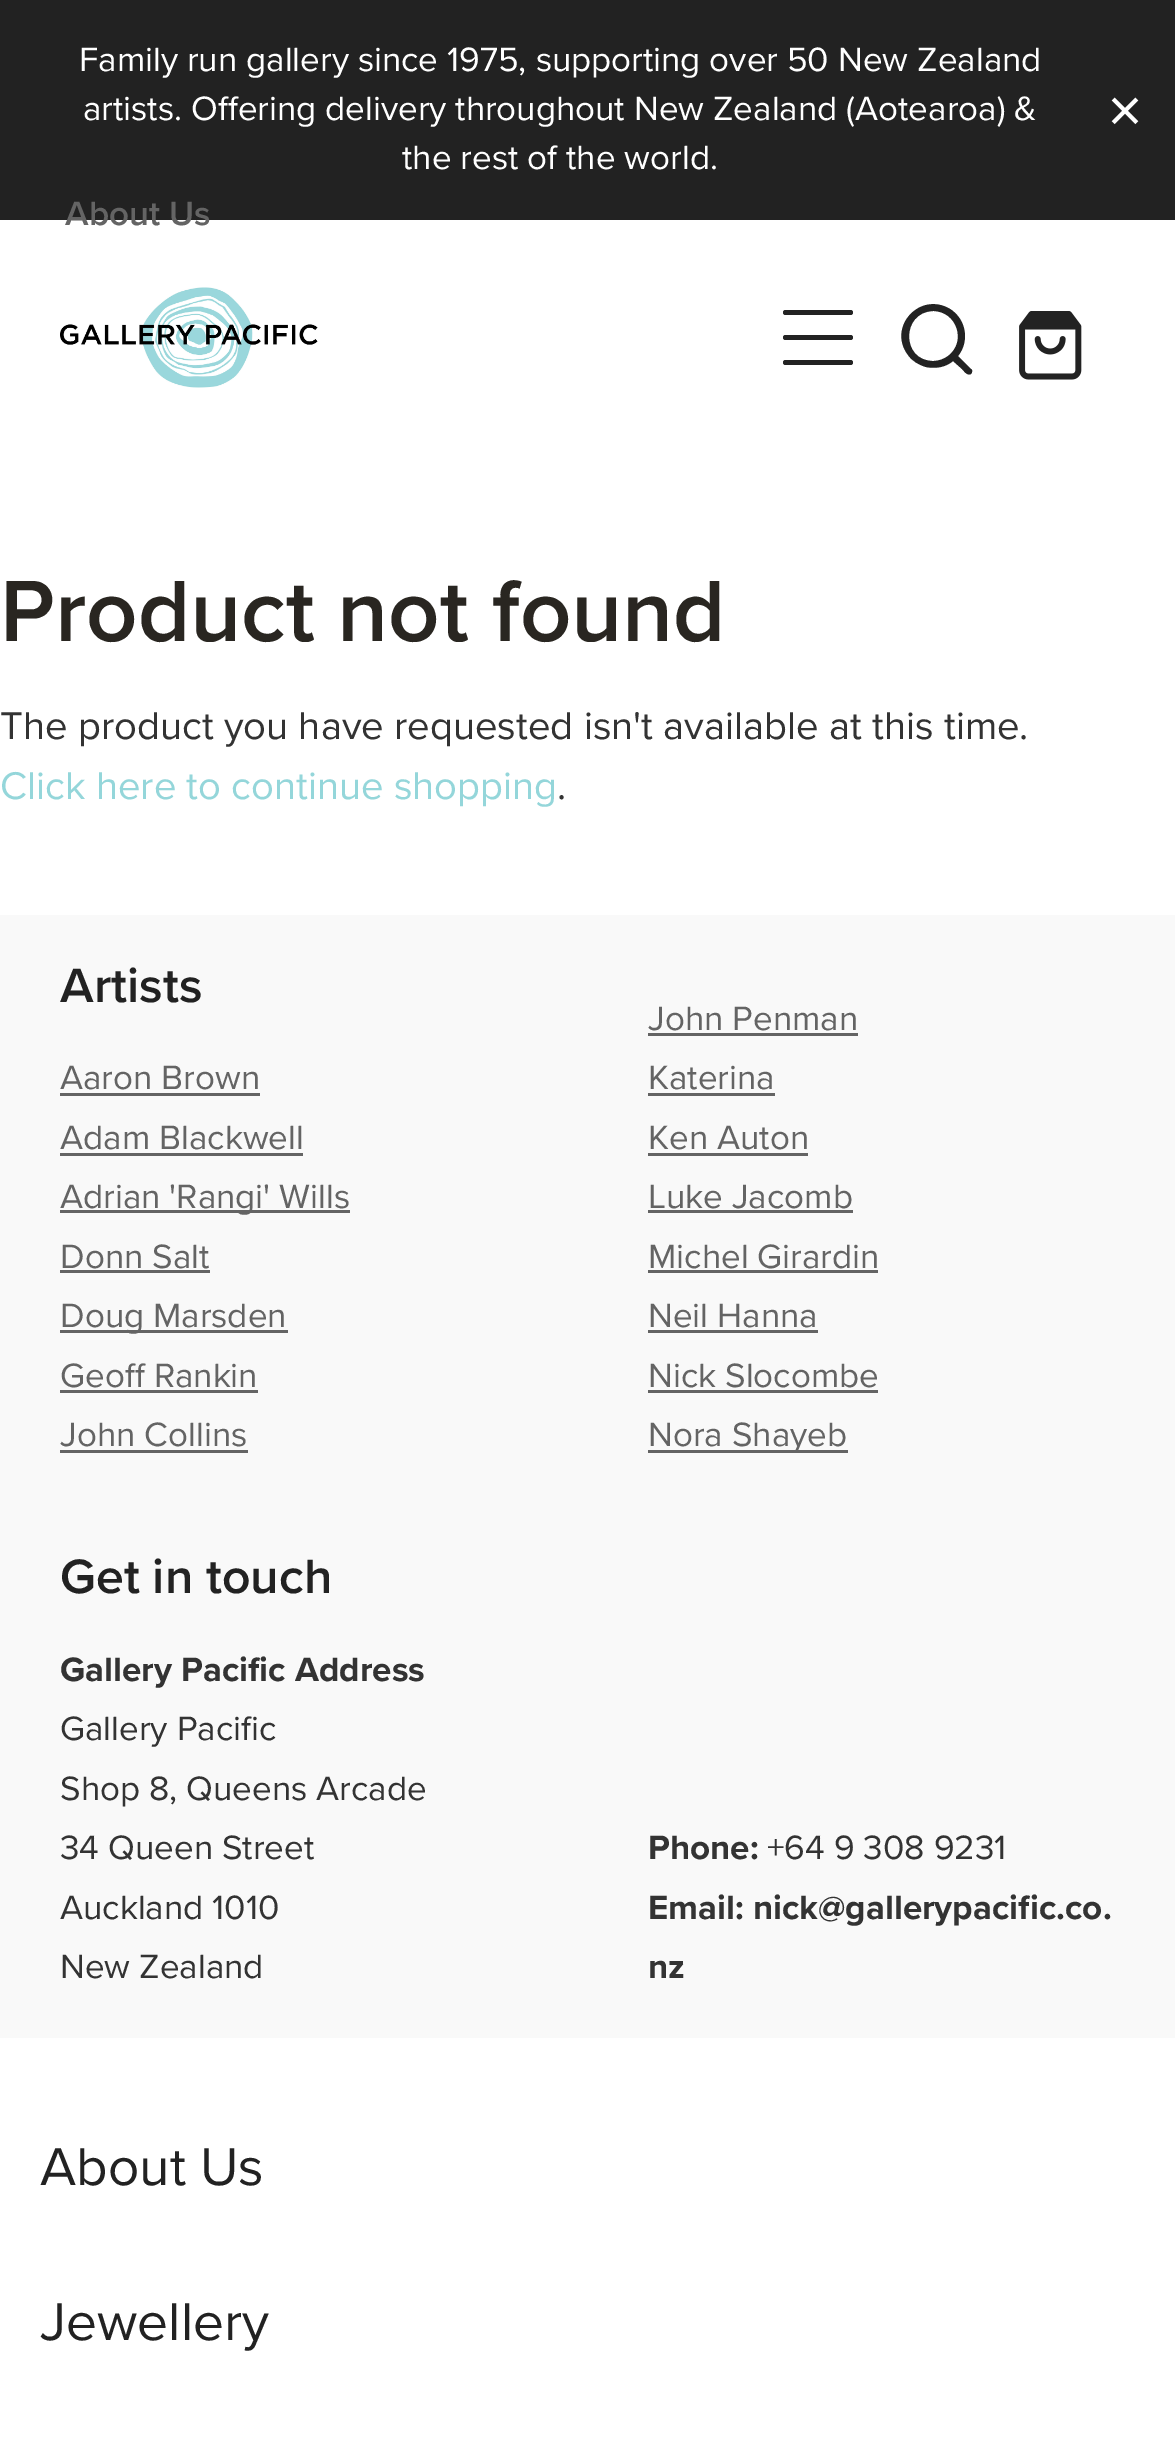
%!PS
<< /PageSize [1175 2449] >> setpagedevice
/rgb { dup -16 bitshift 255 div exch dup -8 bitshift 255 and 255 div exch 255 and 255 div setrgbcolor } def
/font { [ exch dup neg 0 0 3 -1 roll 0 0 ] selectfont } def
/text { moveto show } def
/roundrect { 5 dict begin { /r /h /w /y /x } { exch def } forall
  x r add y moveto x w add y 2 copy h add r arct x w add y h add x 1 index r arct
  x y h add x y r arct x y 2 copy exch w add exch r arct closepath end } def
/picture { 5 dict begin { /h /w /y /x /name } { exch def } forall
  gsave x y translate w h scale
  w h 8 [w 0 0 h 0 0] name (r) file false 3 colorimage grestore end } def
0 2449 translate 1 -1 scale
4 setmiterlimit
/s1 { /ProximaNova-Regular 35 font 16#FFFFFF rgb } def
/s2 { /ProximaNova-SemiBold 35 font 16#646464 rgb } def
/s3 { /ProximaNova-SemiBold 90 font 16#292621 rgb } def
/s4 { /ProximaNova-Regular 40 font 16#333333 rgb } def
/s5 { /ProximaNova-Regular 40 font 16#94D6DA rgb } def
/s6 { /ProximaNova-SemiBold 50 font 16#222222 rgb } def
/s7 { /ProximaNova-Regular 35 font 16#646464 rgb } def
/s8 { /ProximaNova-Bold 35 font 16#333333 rgb } def
/s9 { /ProximaNova-Regular 35 font 16#333333 rgb } def
/s10 { /ProximaNova-Regular 55 font 16#222222 rgb } def
16#FFFFFF rgb
0 0 1175 2449 rectfill
16#222222 rgb
0 0 1175 220 rectfill
s1
(Family run gallery since 1975, supporting over 50 New Zealand) 79 71 text
(artists. Offering delivery throughout New Zealand \(Aotearoa\) &) 83 120 text
(the rest of the world.) 402 169 text
(pic1.raw) 1111 97 28 28 picture
s2
(About Us) 65 225 text
(pic2.raw) 60 287 258 101 picture
16#222222 rgb
783 335 70 5 2.5 roundrect fill
783 310 70 5 2.5 roundrect fill
783 360 70 5 2.5 roundrect fill
971 369 moveto 958 356 lineto 970 341 966 319 950 309 curveto 920 291 887 327 908 355 curveto 912 361 919 365 926 367 curveto 936 369 946 367 953 361 curveto 962 369 lineto 964 371 967 376 971 374 curveto 972 373 973 370 971 369 curveto closepath 933 361 moveto 901 361 901 312 933 311 curveto 957 311 967 342 948 356 curveto 944 359 939 361 933 361 curveto closepath fill
(pic3.raw) 1019 311 63 69 picture
s3
(Product not found) 0 641 text
s4
(The product you have requested isn't available at this time.) 0 739 text
s5
(Click here to continue shopping) 0 799 text
s4
(.) 557 799 text
16#F9F9F9 rgb
0 915 1175 1123 rectfill
s6
(Artists) 60 1002 text
s7
(Aaron Brown) 60 1089 text
60 1093 200 3 rectfill
(Adam Blackwell) 60 1149 text
60 1153 243 3 rectfill
60 1210 290 3 rectfill
(Adrian 'Rangi' Wills) 60 1208 text
(Donn Salt) 60 1268 text
60 1270 150 3 rectfill
60 1330 228 3 rectfill
(Doug Marsden) 60 1327 text
(Geoff Rankin) 60 1387 text
60 1390 198 3 rectfill
(John Collins) 60 1446 text
60 1450 188 3 rectfill
(John Penman) 648 1030 text
648 1033 210 3 rectfill
(Katerina) 648 1089 text
648 1093 127 3 rectfill
(Ken Auton) 648 1149 text
648 1153 160 3 rectfill
(Luke Jacomb) 648 1208 text
648 1210 205 3 rectfill
(Michel Girardin) 648 1268 text
648 1270 230 3 rectfill
(Neil Hanna) 648 1327 text
648 1330 170 3 rectfill
(Nick Slocombe) 648 1387 text
648 1390 230 3 rectfill
648 1450 200 3 rectfill
(Nora Shayeb) 648 1446 text
s6
(Get in touch) 60 1593 text
s8
(Gallery Pacific Address) 60 1681 text
s9
(Gallery Pacific) 60 1740 text
(Shop 8, Queens Arcade) 60 1800 text
(34 Queen Street) 60 1859 text
(Auckland 1010) 60 1919 text
(New Zealand) 60 1978 text
s8
(Phone:) 648 1859 text
s9
(+64 9 308 9231) 767 1859 text
s8
(Email: nick@gallerypacific.co.) 648 1919 text
(nz) 648 1978 text
s10
(About Us) 40 2185 text
(Jewellery) 40 2340 text
showpage
